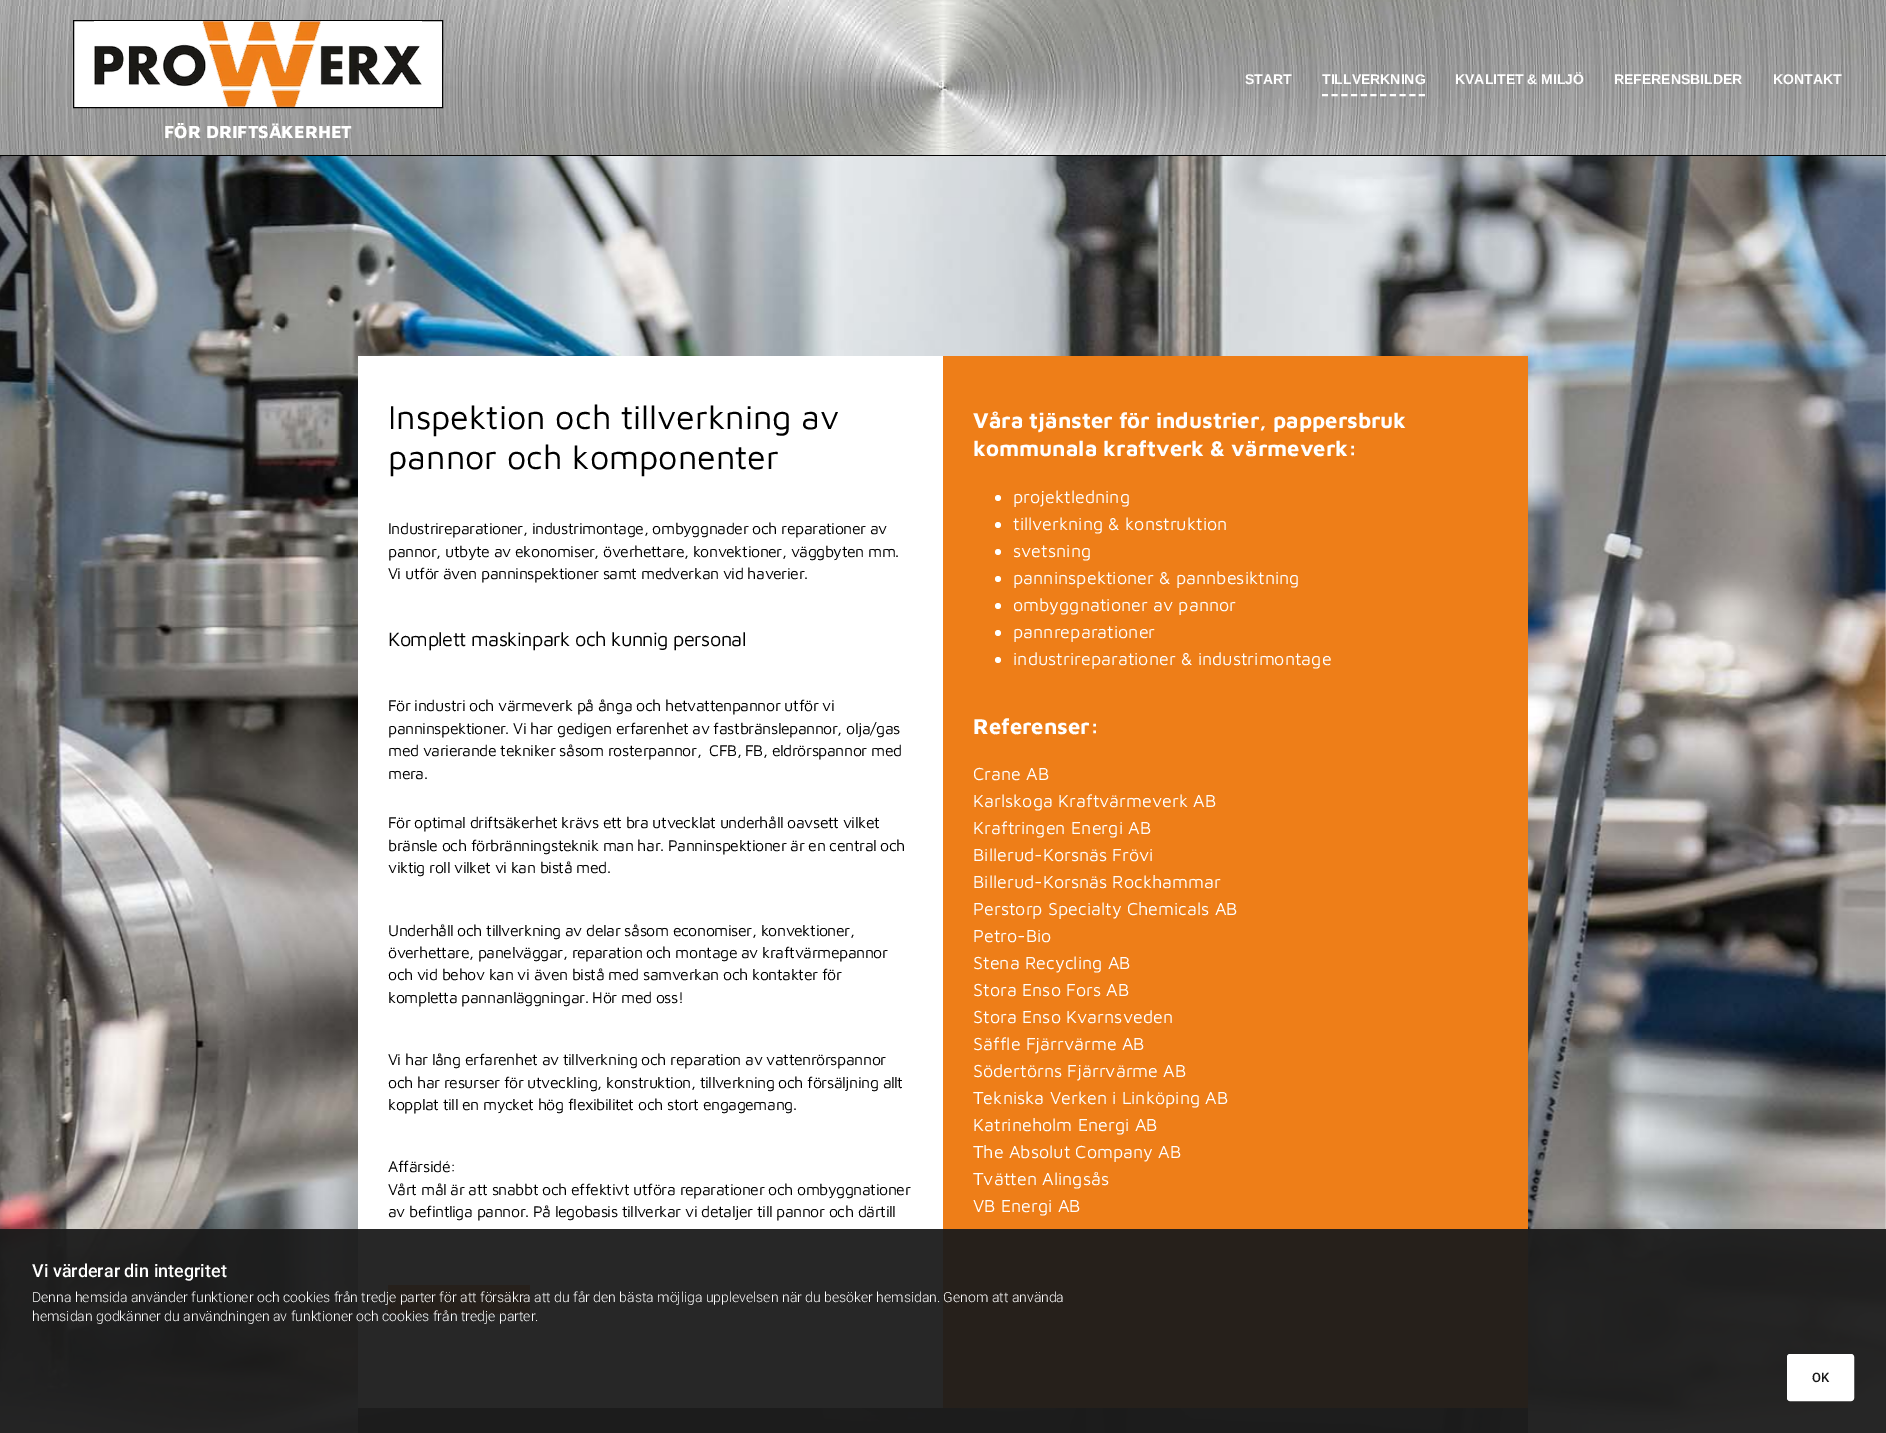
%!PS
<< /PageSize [1886 1433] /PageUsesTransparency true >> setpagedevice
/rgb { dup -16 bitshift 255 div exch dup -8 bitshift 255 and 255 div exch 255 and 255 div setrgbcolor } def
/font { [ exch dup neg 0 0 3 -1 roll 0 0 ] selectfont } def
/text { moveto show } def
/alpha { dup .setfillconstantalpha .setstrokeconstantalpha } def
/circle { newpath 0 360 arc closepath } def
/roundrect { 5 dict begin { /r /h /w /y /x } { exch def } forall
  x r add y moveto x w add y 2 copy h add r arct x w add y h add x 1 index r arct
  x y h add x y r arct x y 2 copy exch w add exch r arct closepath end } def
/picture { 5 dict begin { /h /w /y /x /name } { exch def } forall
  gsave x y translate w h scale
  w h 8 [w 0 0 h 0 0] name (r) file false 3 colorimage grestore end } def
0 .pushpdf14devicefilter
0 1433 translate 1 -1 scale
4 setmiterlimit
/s1 { /LiberationSans-Bold 14 font 16#FFFFFF rgb } def
/s2 { /MavenPro-ExtraBold 18 font 16#FFFFFF rgb } def
/s3 { /MavenPro-Regular 34 font 16#000000 rgb } def
/s4 { /MavenPro-Bold 22 font 16#FFFFFF rgb } def
/s5 { /MavenPro-Regular 18 font 16#FFFFFF rgb } def
/s6 { /Roboto-Medium 18 font 16#FFFFFF rgb } def
/s7 { /Roboto-Light 14 font 16#FFFFFF rgb } def
/s8 { /Roboto-Medium 13 font 16#181818 rgb } def
16#FFFFFF rgb
0 0 1886 1433 rectfill
(pic1.raw) 0 156 1886 1277 picture
(pic2.raw) 0 0 1886 155 picture
16#000000 rgb
0 155 1886 1 rectfill
s1
(START) 1245 84 text
2 setlinewidth
[6 3.7] 0 setdash
1322 95 moveto 1425 95 lineto stroke
(TILLVERKNING) 1322 84 text
(KVALITET & MILJÖ) 1455 84 text
(REFERENSBILDER) 1614 84 text
(KONTAKT) 1773 84 text
73.5 20.5 moveto 442.5 20.5 lineto 442.5 107.5 lineto 73.5 107.5 lineto closepath gsave fill grestore
16#000000 rgb
1 setlinewidth
[] 0 setdash
stroke
(pic3.raw) 94 21 328 86 picture
s2
(FÖR DRIFTSÄKERHET) 164 138 text
358 356 585 1052 rectfill
s3
(Inspektion och tillverkning av) 388 429 text
(pannor och komponenter) 388 469 text
/MavenPro-Regular 16 font
388 534 moveto -0.48 0 (Industrireparationer, industrimontage, ombyggnader och reparationer av) ashow
388 557 moveto -0.48 0 (pannor, utbyte av ekonomiser, överhettare, konvektioner, väggbyten mm.) ashow
388 579 moveto -0.48 0 (Vi utför även panninspektioner samt medverkan vid haverier.) ashow
/MavenPro-Regular 20 font
388 646 moveto -0.6 0 (Komplett maskinpark och kunnig personal) ashow
/MavenPro-Regular 16 font
388 711 moveto -0.48 0 (För industri och värmeverk på ånga och hetvattenpannor utför vi) ashow
388 734 moveto -0.48 0 (panninspektioner. Vi har gedigen erfarenhet av fastbränslepannor, olja/gas) ashow
388 756 moveto -0.48 0 (med varierande tekniker såsom rosterpannor,  CFB, FB, eldrörspannor med) ashow
388 779 moveto -0.48 0 (mera.) ashow
388 828 moveto -0.48 0 (För optimal driftsäkerhet krävs ett bra utvecklat underhåll oavsett vilket) ashow
388 851 moveto -0.48 0 (bränsle och förbränningsteknik man har. Panninspektioner är en central och) ashow
388 873 moveto -0.48 0 (viktig roll vilket vi kan bistå med.) ashow
388 936 moveto -0.48 0 (Underhåll och tillverkning av delar såsom economiser, konvektioner,) ashow
388 958 moveto -0.48 0 (överhettare, panelväggar, reparation och montage av kraftvärmepannor) ashow
388 980 moveto -0.48 0 (och vid behov kan vi även bistå med samverkan och kontakter för) ashow
388 1003 moveto -0.48 0 (kompletta pannanläggningar. Hör med oss!) ashow
388 1065 moveto -0.48 0 (Vi har lång erfarenhet av tillverkning och reparation av vattenrörspannor) ashow
388 1088 moveto -0.48 0 (och har resurser för utveckling, konstruktion, tillverkning och försäljning allt) ashow
388 1110 moveto -0.48 0 (kopplat till en mycket hög flexibilitet och stort engagemang.) ashow
388 1172 moveto -0.48 0 (Affärsidé:) ashow
388 1195 moveto -0.48 0 (Vårt mål är att snabbt och effektivt utföra reparationer och ombyggnationer) ashow
388 1217 moveto -0.48 0 (av befintliga pannor. På legobasis tillverkar vi detaljer till pannor och därtill) ashow
16#EE7E18 rgb
388 1285 142 29 rectfill
943 356 585 1052 rectfill
s4
(Våra tjänster för industrier, pappersbruk) 973 428 text
(kommunala kraftverk & värmeverk:) 973 456 text
998 498 3 circle fill
s5
(projektledning) 1013 503 text
998 525 3 circle fill
(tillverkning & konstruktion) 1013 530 text
998 552 3 circle fill
(svetsning) 1013 557 text
998 579 3 circle fill
(panninspektioner & pannbesiktning) 1013 584 text
998 606 3 circle fill
(ombyggnationer av pannor) 1013 611 text
998 633 3 circle fill
(pannreparationer) 1013 638 text
998 660 3 circle fill
(industrireparationer & industrimontage) 1013 665 text
s4
(Referenser:) 973 734 text
s5
(Crane AB) 973 780 text
(Karlskoga Kraftvärmeverk AB) 973 807 text
(Kraftringen Energi AB) 973 834 text
(Billerud-Korsnäs Frövi) 973 861 text
(Billerud-Korsnäs Rockhammar) 973 888 text
(Perstorp Specialty Chemicals AB) 973 915 text
(Petro-Bio) 973 942 text
(Stena Recycling AB) 973 969 text
(Stora Enso Fors AB) 973 996 text
(Stora Enso Kvarnsveden) 973 1023 text
(Säffle Fjärrvärme AB) 973 1050 text
(Södertörns Fjärrvärme AB) 973 1077 text
(Tekniska Verken i Linköping AB) 973 1104 text
(Katrineholm Energi AB) 973 1131 text
(The Absolut Company AB) 973 1158 text
(Tvätten Alingsås) 973 1185 text
(VB Energi AB) 973 1212 text
0.81 alpha
16#1C1C1C rgb
358 1408 1170 25 rectfill
0.95 alpha
16#1B1B1B rgb
0 1229 1886 204 rectfill
1 alpha
s6
(Vi värderar din integritet) 32 1277 text
s7
(Denna hemsida använder funktioner och cookies från tredje parter för att försäkra att du får den bästa möjliga upplevelsen när du besöker hemsidan. Genom att använda) 32 1302 text
(hemsidan godkänner du användningen av funktioner och cookies från tredje parter.) 32 1321 text
1787.5 1354.5 66 46 2.5 roundrect gsave fill grestore
stroke
s8
(OK) 1812 1382 text
.poppdf14devicefilter showpage
